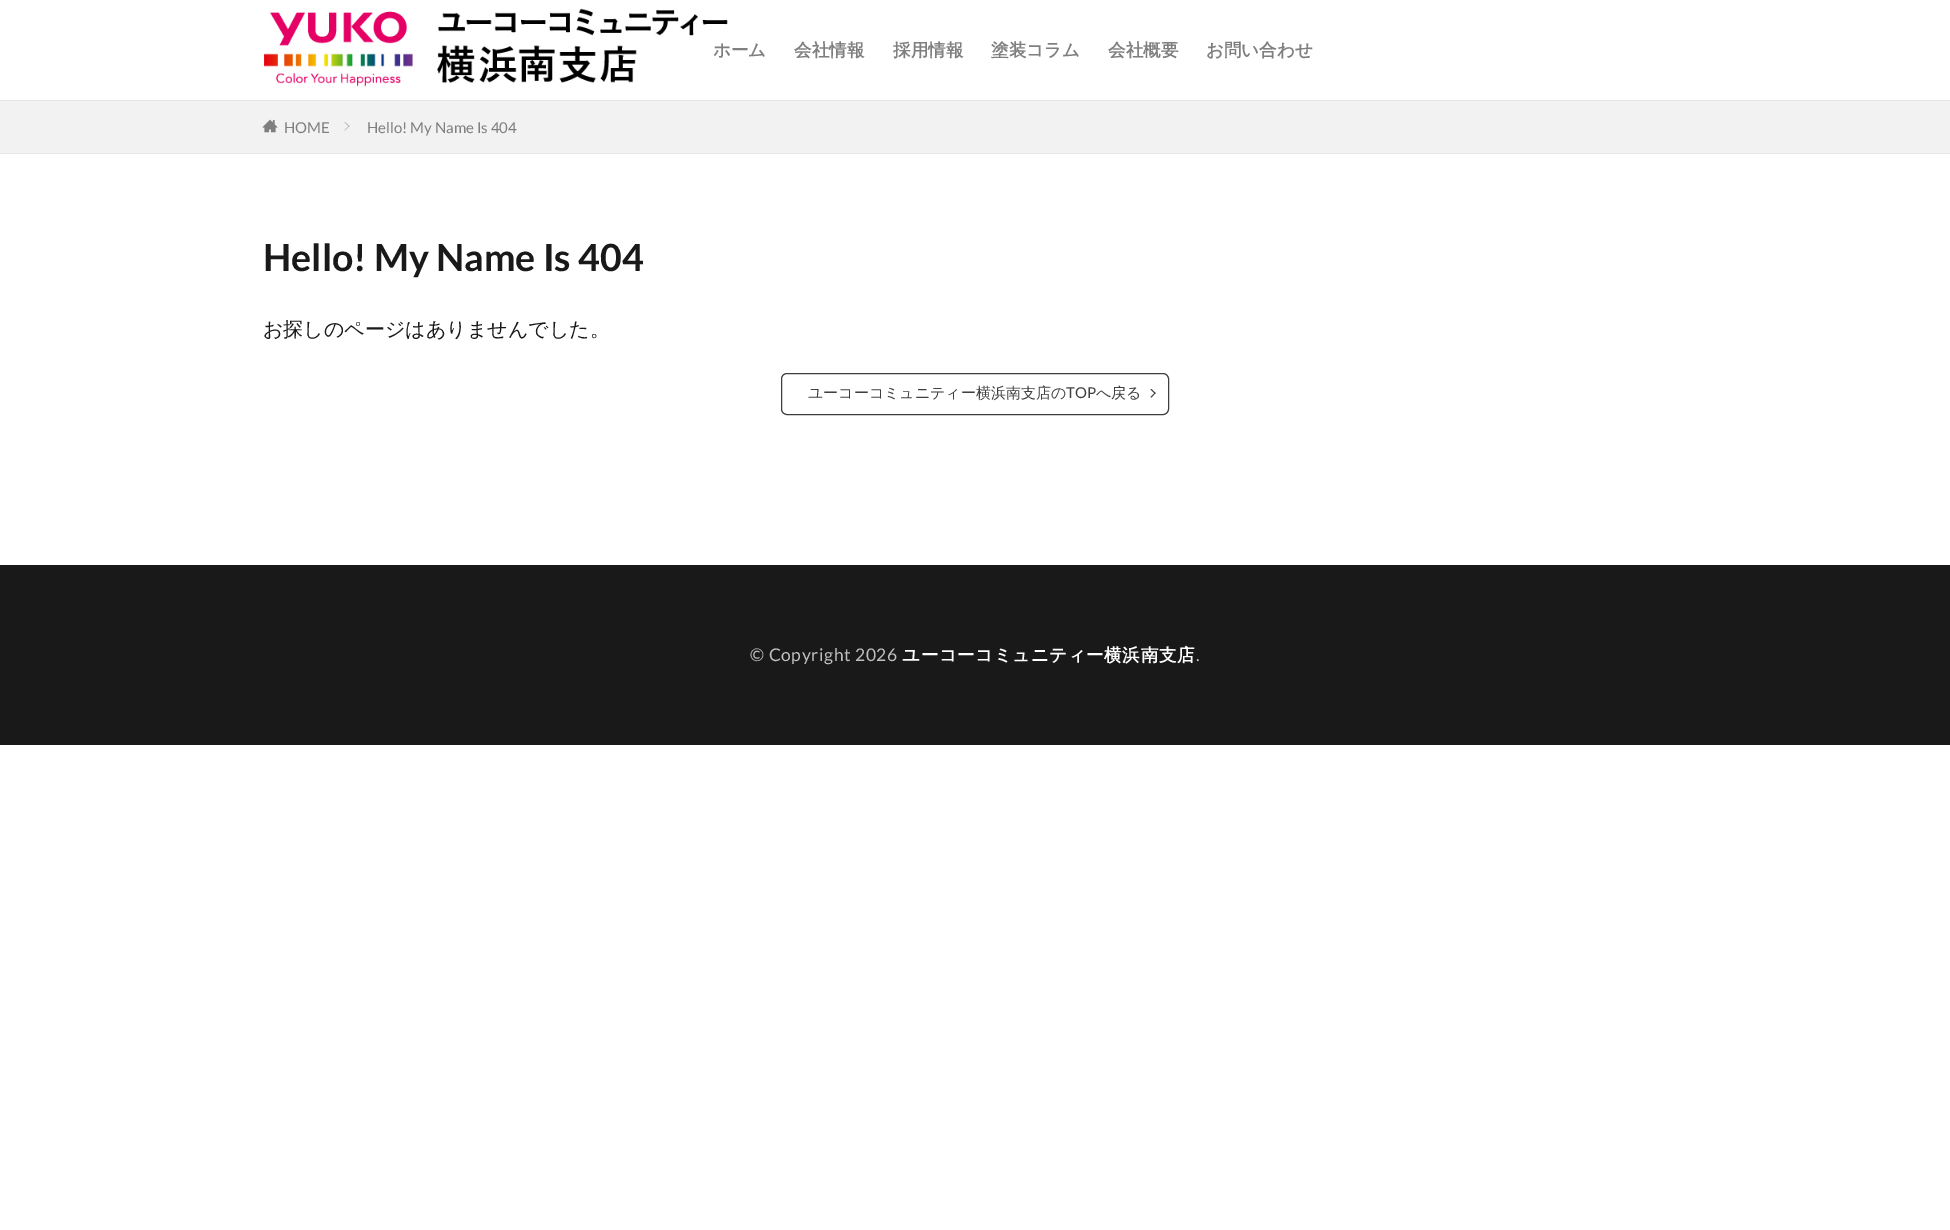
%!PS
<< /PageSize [1950 1230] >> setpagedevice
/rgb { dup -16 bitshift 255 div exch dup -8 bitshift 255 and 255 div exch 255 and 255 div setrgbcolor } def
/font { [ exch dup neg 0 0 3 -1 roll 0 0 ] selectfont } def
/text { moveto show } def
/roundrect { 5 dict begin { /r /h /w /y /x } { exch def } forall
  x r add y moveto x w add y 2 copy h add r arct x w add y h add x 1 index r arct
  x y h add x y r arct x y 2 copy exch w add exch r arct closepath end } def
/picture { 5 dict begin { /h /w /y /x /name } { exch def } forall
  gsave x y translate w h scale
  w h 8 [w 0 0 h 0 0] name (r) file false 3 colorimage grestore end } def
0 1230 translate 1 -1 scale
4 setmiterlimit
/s1 { /WenQuanYiZenHei-Bold 17.5 font 16#7F7F7F rgb } def
/s2 { /Lato-Regular 15 font 16#7F7F7F rgb } def
/s3 { /Lato-Bold 37.5 font 16#191919 rgb } def
/s4 { /WenQuanYiZenHei-Medium 20 font 16#191919 rgb } def
/s5 { /WenQuanYiZenHei-Medium 15 font 16#3F3F3F rgb } def
/s6 { /Lato-Regular 15 font 16#3F3F3F rgb } def
16#FFFFFF rgb
0 0 1950 1230 rectfill
16#E6E6E6 rgb
0 100 1950 1 rectfill
(pic1.raw) 264 8 464 79 picture
s1
(ホーム) 713 56 text
(会社情報) 794 56 text
(採用情報) 893 56 text
(塗装コラム) 991 56 text
(会社概要) 1108 56 text
(お問い合わせ) 1206 56 text
16#F2F2F2 rgb
0 101 1950 52 rectfill
16#E6E6E6 rgb
0 153 1950 1 rectfill
(pic2.raw) 262 119 16 14 picture
s2
(HOME) 284 133 text
16#BFBFBF rgb
345 122 moveto 349.5 126 lineto 349 127 lineto 344.5 122.5 lineto closepath fill
349 125.5 moveto 349.5 126 lineto 345 130.5 lineto 344.5 130 lineto closepath fill
s2
(Hello! My Name Is 404) 367 133 text
s3
(Hello! My Name Is 404) 263 271 text
s4
(お探しのページはありませんでした。) 263 336 text
16#3F3F3F rgb
781.5 373.5 387 41 5.5 roundrect stroke
s5
(ユーコーコミュニティー横浜南支店の) 808 398 text
s6
(TOP) 1066 398 text
s5
(へ戻る) 1096 398 text
1151.5 389 moveto 1155.5 393 lineto 1155 394 lineto 1150.5 389.5 lineto closepath fill
1155 392.5 moveto 1155.5 393 lineto 1151.5 397.5 lineto 1150.5 397 lineto closepath fill
16#191919 rgb
0 565 1950 180 rectfill
/Lato-Regular 17.5 font
16#BFBFBF rgb
750 661 moveto 0.6 0 (© Copyright 2026) ashow
/WenQuanYiZenHei-Bold 17.5 font
16#FFFFFF rgb
902 661 moveto 0.6 0 (ユーコーコミュニティー横浜南支店) ashow
/Lato-Regular 17.5 font
16#BFBFBF rgb
1196 661 moveto 0.6 0 (.) ashow
showpage
